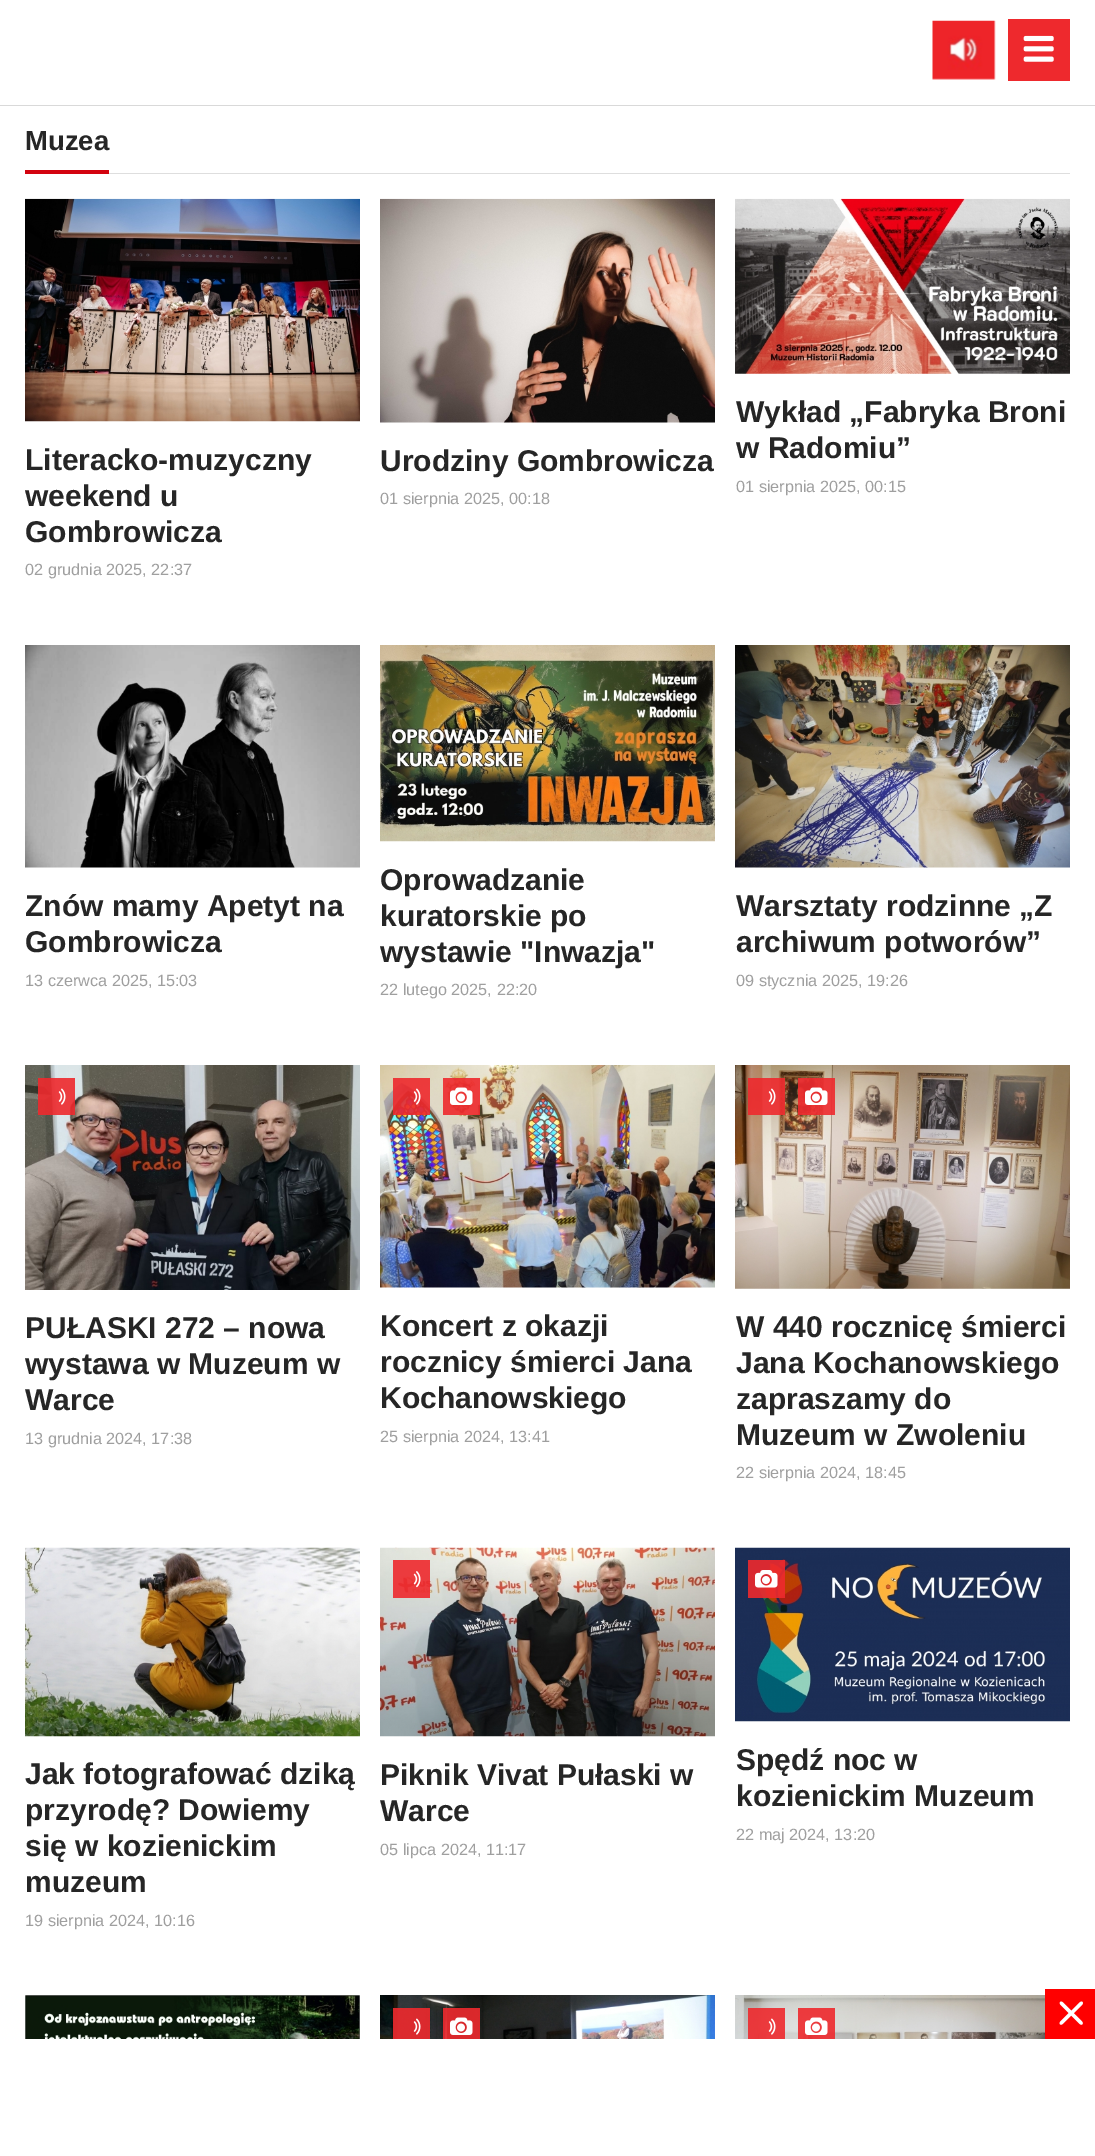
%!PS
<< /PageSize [1095 2156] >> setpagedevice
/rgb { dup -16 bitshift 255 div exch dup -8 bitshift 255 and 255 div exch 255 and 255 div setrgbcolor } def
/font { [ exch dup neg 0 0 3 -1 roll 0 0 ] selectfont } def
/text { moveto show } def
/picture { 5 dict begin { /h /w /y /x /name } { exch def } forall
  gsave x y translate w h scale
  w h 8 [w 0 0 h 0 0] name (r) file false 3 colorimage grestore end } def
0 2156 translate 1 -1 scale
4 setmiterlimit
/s1 { /LiberationSans-Bold 27.5 font 16#262626 rgb } def
/s2 { /LiberationSans-Bold 30 font 16#262626 rgb } def
/s3 { /LiberationSans-Regular 16.25 font 16#9F9F9F rgb } def
16#FFFFFF rgb
0 0 1095 2156 rectfill
16#D9D9D9 rgb
0 105 1095 1 rectfill
(pic1.raw) 932 20 64 60 picture
(pic2.raw) 1008 19 62 62 picture
16#DEDEDE rgb
109 173 961 1 rectfill
16#D3030F rgb
25 170 84 4 rectfill
s1
(Muzea) 25 150 text
(pic3.raw) 25 198 335 224 picture
s2
(Literacko-muzyczny) 25 470 text
(weekend u) 25 506 text
(Gombrowicza) 25 542 text
s3
(02 grudnia 2025, 22:37) 25 575 text
(pic4.raw) 380 198 335 225 picture
s2
(Urodziny Gombrowicza) 380 471 text
s3
(01 sierpnia 2025, 00:18) 380 504 text
(pic5.raw) 735 198 335 176 picture
s2
(Wykład „Fabryka Broni) 736 422 text
(w Radomiu”) 736 458 text
s3
(01 sierpnia 2025, 00:15) 736 492 text
(pic6.raw) 25 645 335 223 picture
s2
(Znów mamy Apetyt na) 25 916 text
(Gombrowicza) 25 952 text
s3
(13 czerwca 2025, 15:03) 25 986 text
(pic7.raw) 380 645 335 197 picture
s2
(Oprowadzanie) 380 890 text
(kuratorskie po) 380 926 text
(wystawie "Inwazja") 380 962 text
s3
(22 lutego 2025, 22:20) 380 995 text
(pic8.raw) 735 645 335 223 picture
s2
(Warsztaty rodzinne „Z) 736 916 text
(archiwum potworów”) 736 952 text
s3
(09 stycznia 2025, 19:26) 736 986 text
(pic9.raw) 25 1065 335 225 picture
(pic10.raw) 38 1078 37 37 picture
s2
(PUŁASKI 272 – nowa) 25 1338 text
(wystawa w Muzeum w) 25 1374 text
(Warce) 25 1410 text
s3
(13 grudnia 2024, 17:38) 25 1444 text
(pic11.raw) 380 1065 335 223 picture
(pic12.raw) 393 1078 37 37 picture
(pic13.raw) 443 1078 37 37 picture
s2
(Koncert z okazji) 380 1336 text
(rocznicy śmierci Jana) 380 1372 text
(Kochanowskiego) 380 1408 text
s3
(25 sierpnia 2024, 13:41) 380 1442 text
(pic14.raw) 735 1065 335 224 picture
(pic15.raw) 748 1078 37 37 picture
(pic16.raw) 798 1078 37 37 picture
s2
(W 440 rocznicę śmierci) 736 1337 text
(Jana Kochanowskiego) 736 1373 text
(zapraszamy do) 736 1409 text
(Muzeum w Zwoleniu) 736 1445 text
s3
(22 sierpnia 2024, 18:45) 736 1478 text
(pic17.raw) 25 1547 335 190 picture
s2
(Jak fotografować dziką) 25 1784 text
(przyrodę? Dowiemy) 25 1820 text
(się w kozienickim) 25 1856 text
(muzeum) 25 1892 text
s3
(19 sierpnia 2024, 10:16) 25 1926 text
(pic18.raw) 380 1547 335 190 picture
(pic19.raw) 393 1560 37 38 picture
s2
(Piknik Vivat Pułaski w) 380 1785 text
(Warce) 380 1821 text
s3
(05 lipca 2024, 11:17) 380 1855 text
(pic20.raw) 735 1547 335 175 picture
(pic21.raw) 748 1560 37 38 picture
s2
(Spędź noc w) 736 1770 text
(kozienickim Muzeum) 736 1806 text
s3
(22 maj 2024, 13:20) 736 1840 text
(pic22.raw) 25 1995 335 44 picture
(pic23.raw) 380 1995 335 44 picture
(pic24.raw) 393 2008 37 31 picture
(pic25.raw) 443 2008 37 31 picture
(pic26.raw) 735 1995 310 44 picture
(pic27.raw) 748 2008 37 31 picture
(pic28.raw) 798 2008 37 31 picture
16#FF0000 rgb
1045 1989 50 50 rectfill
(pic29.raw) 1059 2001 24 24 picture
showpage
